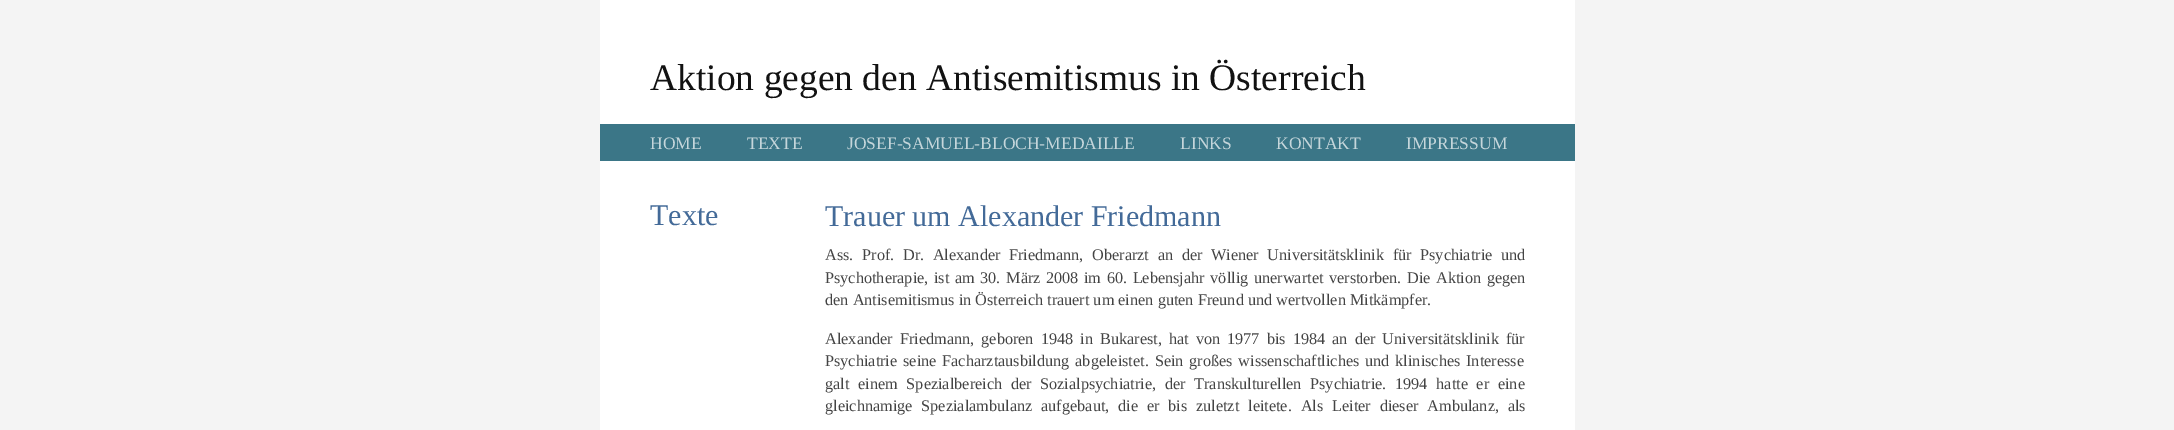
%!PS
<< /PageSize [2174 430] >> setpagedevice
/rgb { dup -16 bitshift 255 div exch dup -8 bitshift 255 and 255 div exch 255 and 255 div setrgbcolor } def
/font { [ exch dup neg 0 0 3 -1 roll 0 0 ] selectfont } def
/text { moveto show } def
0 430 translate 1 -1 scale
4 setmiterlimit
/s1 { /LiberationSerif-Regular 37.5 font 16#121212 rgb } def
/s2 { /LiberationSerif-Regular 17.5 font 16#C5D6DB rgb } def
/s3 { /LiberationSerif-Regular 30 font 16#436A98 rgb } def
/s4 { /LiberationSerif-Regular 16.25 font 16#444444 rgb } def
16#F4F4F4 rgb
0 0 2174 430 rectfill
16#FFFFFF rgb
600 0 975 430 rectfill
s1
(Aktion gegen den Antisemitismus in Österreich) 650 90 text
16#3B7687 rgb
600 124 975 37 rectfill
s2
(HOME) 650 149 text
(TEXTE) 747 149 text
(JOSEF-SAMUEL-BLOCH-MEDAILLE) 847 149 text
(LINKS) 1180 149 text
(KONTAKT) 1276 149 text
(IMPRESSUM) 1406 149 text
s3
(Texte) 650 225 text
(Trauer um Alexander Friedmann) 825 226 text
/LiberationSerif-Regular 16.25 font
16#444444 rgb
825 260 moveto 4.6 0 32 (Ass. Prof. Dr. Alexander Friedmann, Oberarzt an der Wiener Universitätsklinik für Psychiatrie und) widthshow
825 283 moveto 1.5 0 32 (Psychotherapie, ist am 30. März 2008 im 60. Lebensjahr völlig unerwartet verstorben. Die Aktion gegen) widthshow
(den Antisemitismus in Österreich trauert um einen guten Freund und wertvollen Mitkämpfer.) 825 305 text
825 344 moveto 3 0 32 (Alexander Friedmann, geboren 1948 in Bukarest, hat von 1977 bis 1984 an der Universitätsklinik für) widthshow
825 366 moveto 1.75 0 32 (Psychiatrie seine Facharztausbildung abgeleistet. Sein großes wissenschaftliches und klinisches Interesse) widthshow
825 389 moveto 4.6 0 32 (galt einem Spezialbereich der Sozialpsychiatrie, der Transkulturellen Psychiatrie. 1994 hatte er eine) widthshow
825 411 moveto 4.75 0 32 (gleichnamige Spezialambulanz aufgebaut, die er bis zuletzt leitete. Als Leiter dieser Ambulanz, als) widthshow
showpage
